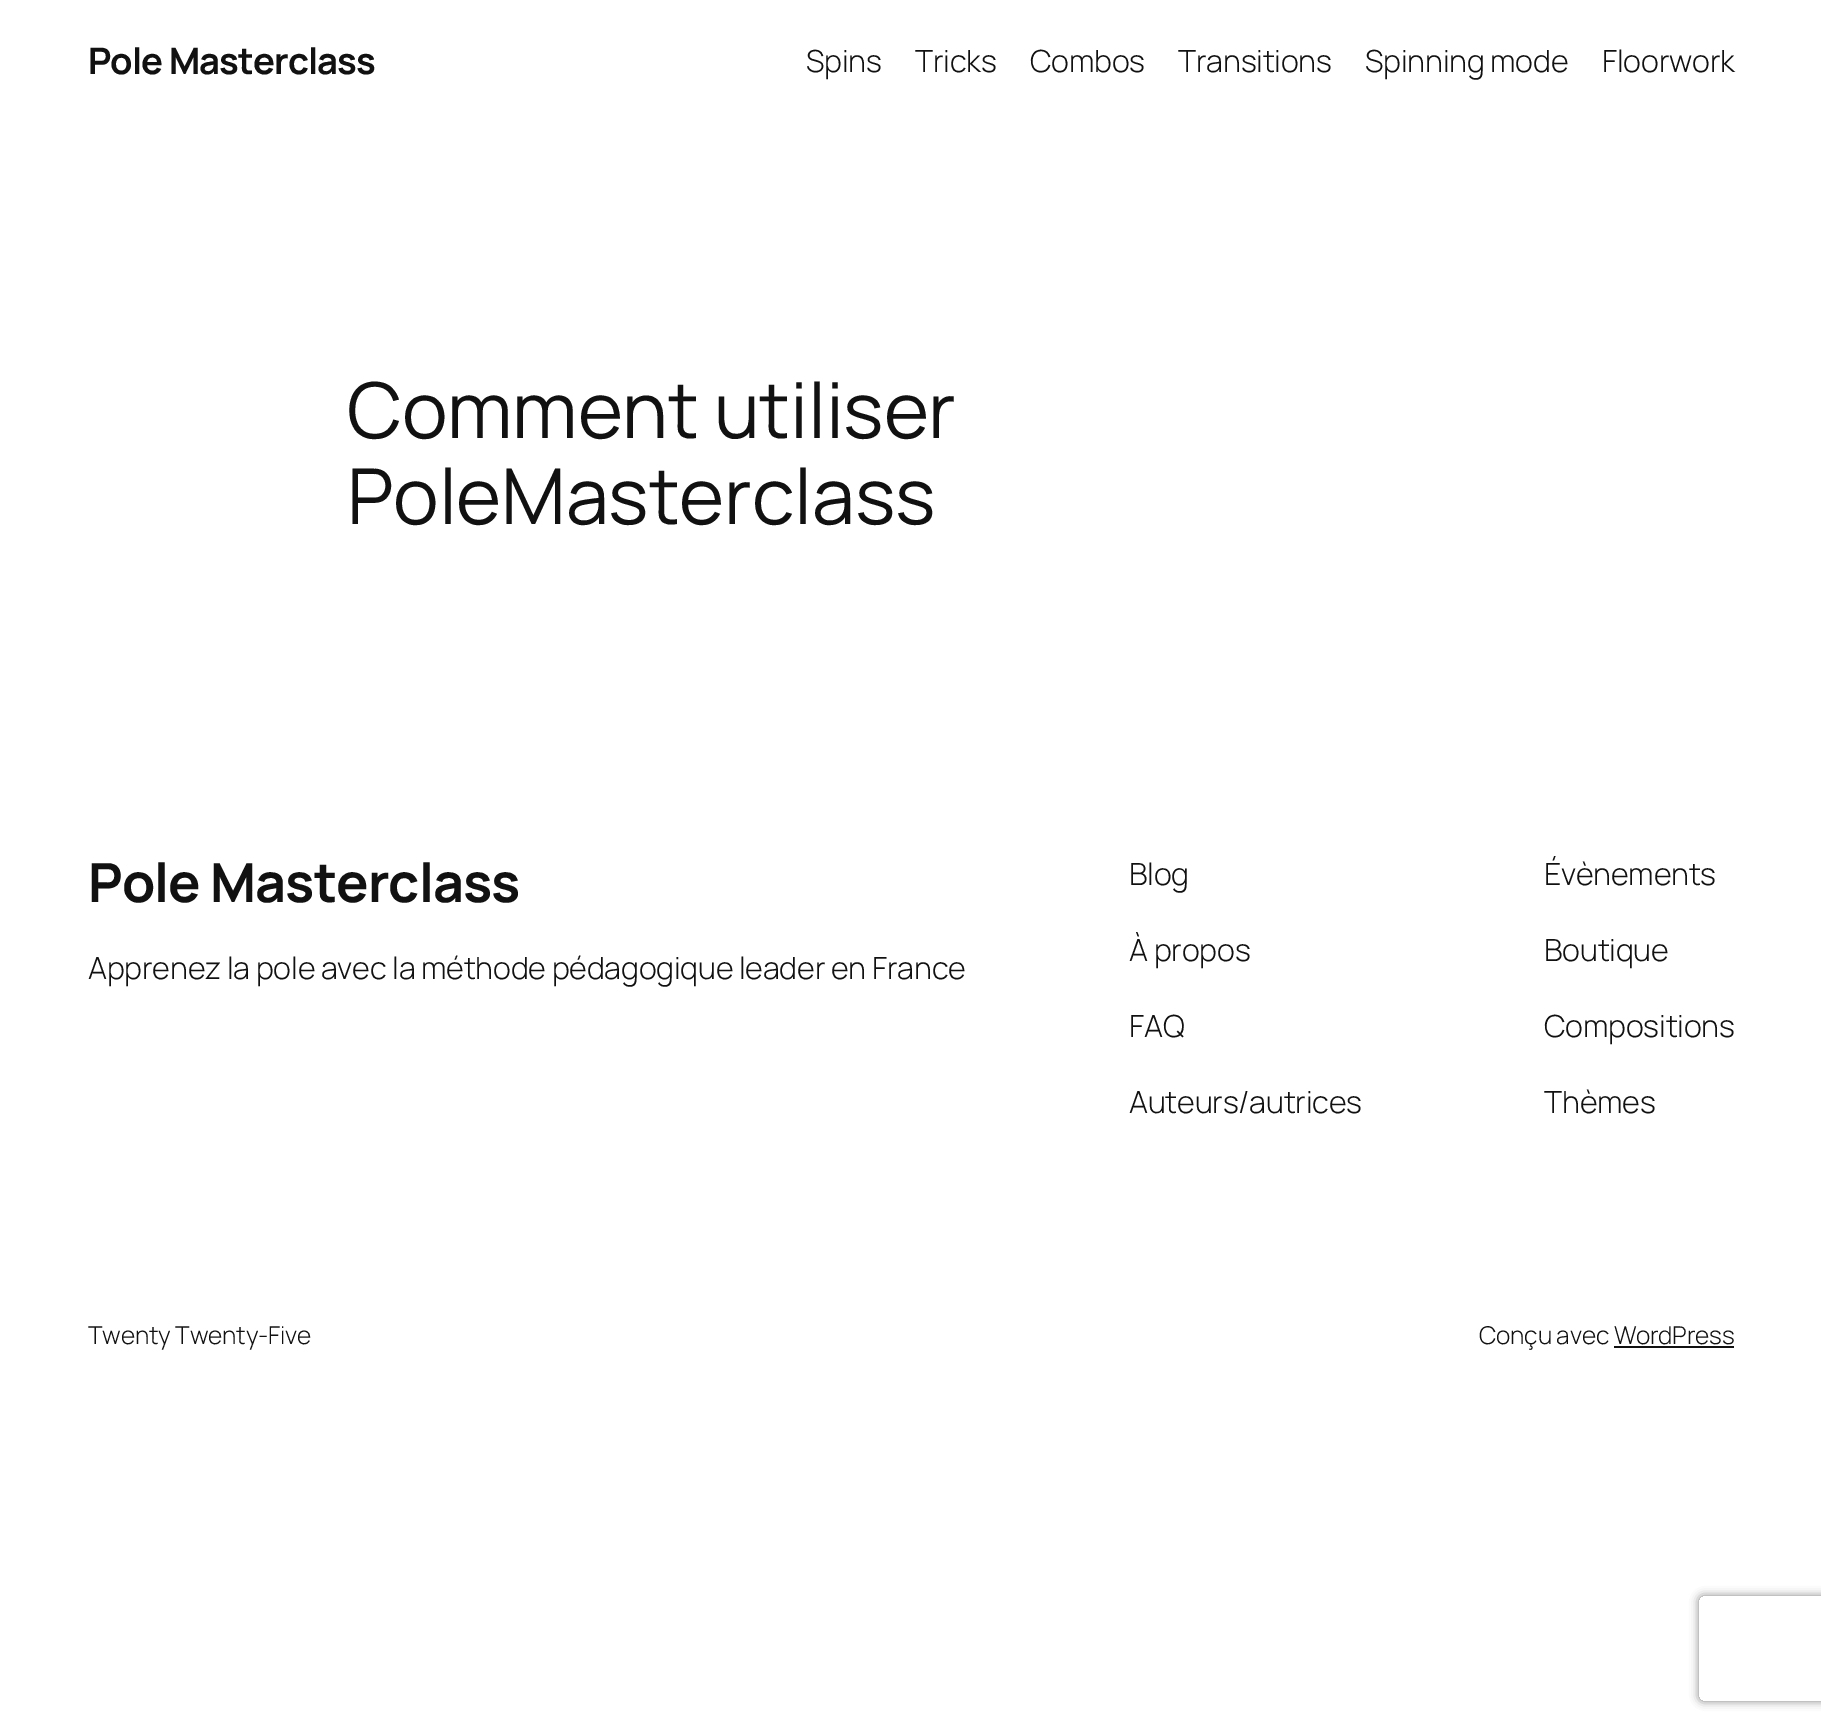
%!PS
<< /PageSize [1821 1724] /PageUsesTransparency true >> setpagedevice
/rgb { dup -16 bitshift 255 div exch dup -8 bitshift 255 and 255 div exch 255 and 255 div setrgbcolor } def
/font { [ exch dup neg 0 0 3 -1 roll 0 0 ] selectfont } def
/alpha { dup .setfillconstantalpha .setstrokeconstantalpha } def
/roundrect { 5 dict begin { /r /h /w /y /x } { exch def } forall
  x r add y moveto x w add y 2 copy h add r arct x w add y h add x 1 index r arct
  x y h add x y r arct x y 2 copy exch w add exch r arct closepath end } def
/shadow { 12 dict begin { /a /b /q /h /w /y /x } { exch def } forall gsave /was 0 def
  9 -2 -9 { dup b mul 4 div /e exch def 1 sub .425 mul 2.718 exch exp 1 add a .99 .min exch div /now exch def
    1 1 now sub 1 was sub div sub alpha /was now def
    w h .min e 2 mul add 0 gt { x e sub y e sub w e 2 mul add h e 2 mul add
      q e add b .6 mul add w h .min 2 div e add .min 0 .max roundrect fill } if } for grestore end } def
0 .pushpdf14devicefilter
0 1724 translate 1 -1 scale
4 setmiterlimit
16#FFFFFF rgb
0 0 1821 1724 rectfill
/Manrope-Bold 36.5 font
16#111111 rgb
88 74 moveto -0.9 0 (Pole Masterclass) ashow
/Manrope-Light 30.5 font
806 72 moveto -0.18 0 (Spins) ashow
915 72 moveto -0.18 0 (Tricks) ashow
1030 72 moveto -0.18 0 (Combos) ashow
1178 72 moveto -0.18 0 (Transitions) ashow
1365 72 moveto -0.18 0 (Spinning mode) ashow
1602 72 moveto -0.18 0 (Floorwork) ashow
/Manrope-Regular 77 font
347 438 moveto -0.18 0 (Comment utiliser) ashow
347 524 moveto -0.18 0 (PoleMasterclass) ashow
/Manrope-Bold 54 font
88 902 moveto -0.9 0 (Pole Masterclass) ashow
/Manrope-Light 30.5 font
88 979 moveto -0.18 0 (Apprenez la pole avec la méthode pédagogique leader en France) ashow
1129 885 moveto -0.18 0 (Blog) ashow
1129 961 moveto -0.18 0 (À propos) ashow
1129 1037 moveto -0.18 0 (FAQ) ashow
1129 1113 moveto -0.18 0 (Auteurs/autrices) ashow
1544 885 moveto -0.18 0 (Évènements) ashow
1544 961 moveto -0.18 0 (Boutique) ashow
1544 1037 moveto -0.18 0 (Compositions) ashow
1544 1113 moveto -0.18 0 (Thèmes) ashow
/Manrope-Light 24.5 font
88 1344 moveto -0.18 0 (Twenty Twenty-Five) ashow
1479 1344 moveto -0.18 0 (Conçu avec WordPress) ashow
1614 1346 120 2 rectfill
gsave
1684 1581 moveto 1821 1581 lineto 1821 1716 lineto 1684 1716 lineto closepath 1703 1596 moveto 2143 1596 lineto 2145 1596 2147 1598 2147 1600 curveto 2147 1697 lineto 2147 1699 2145 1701 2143 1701 curveto 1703 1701 lineto 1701 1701 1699 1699 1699 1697 curveto 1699 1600 lineto 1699 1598 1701 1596 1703 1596 curveto closepath eoclip newpath
16#808080 rgb
1699 1596 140 105 4 4.5 1 shadow
grestore
.poppdf14devicefilter showpage
